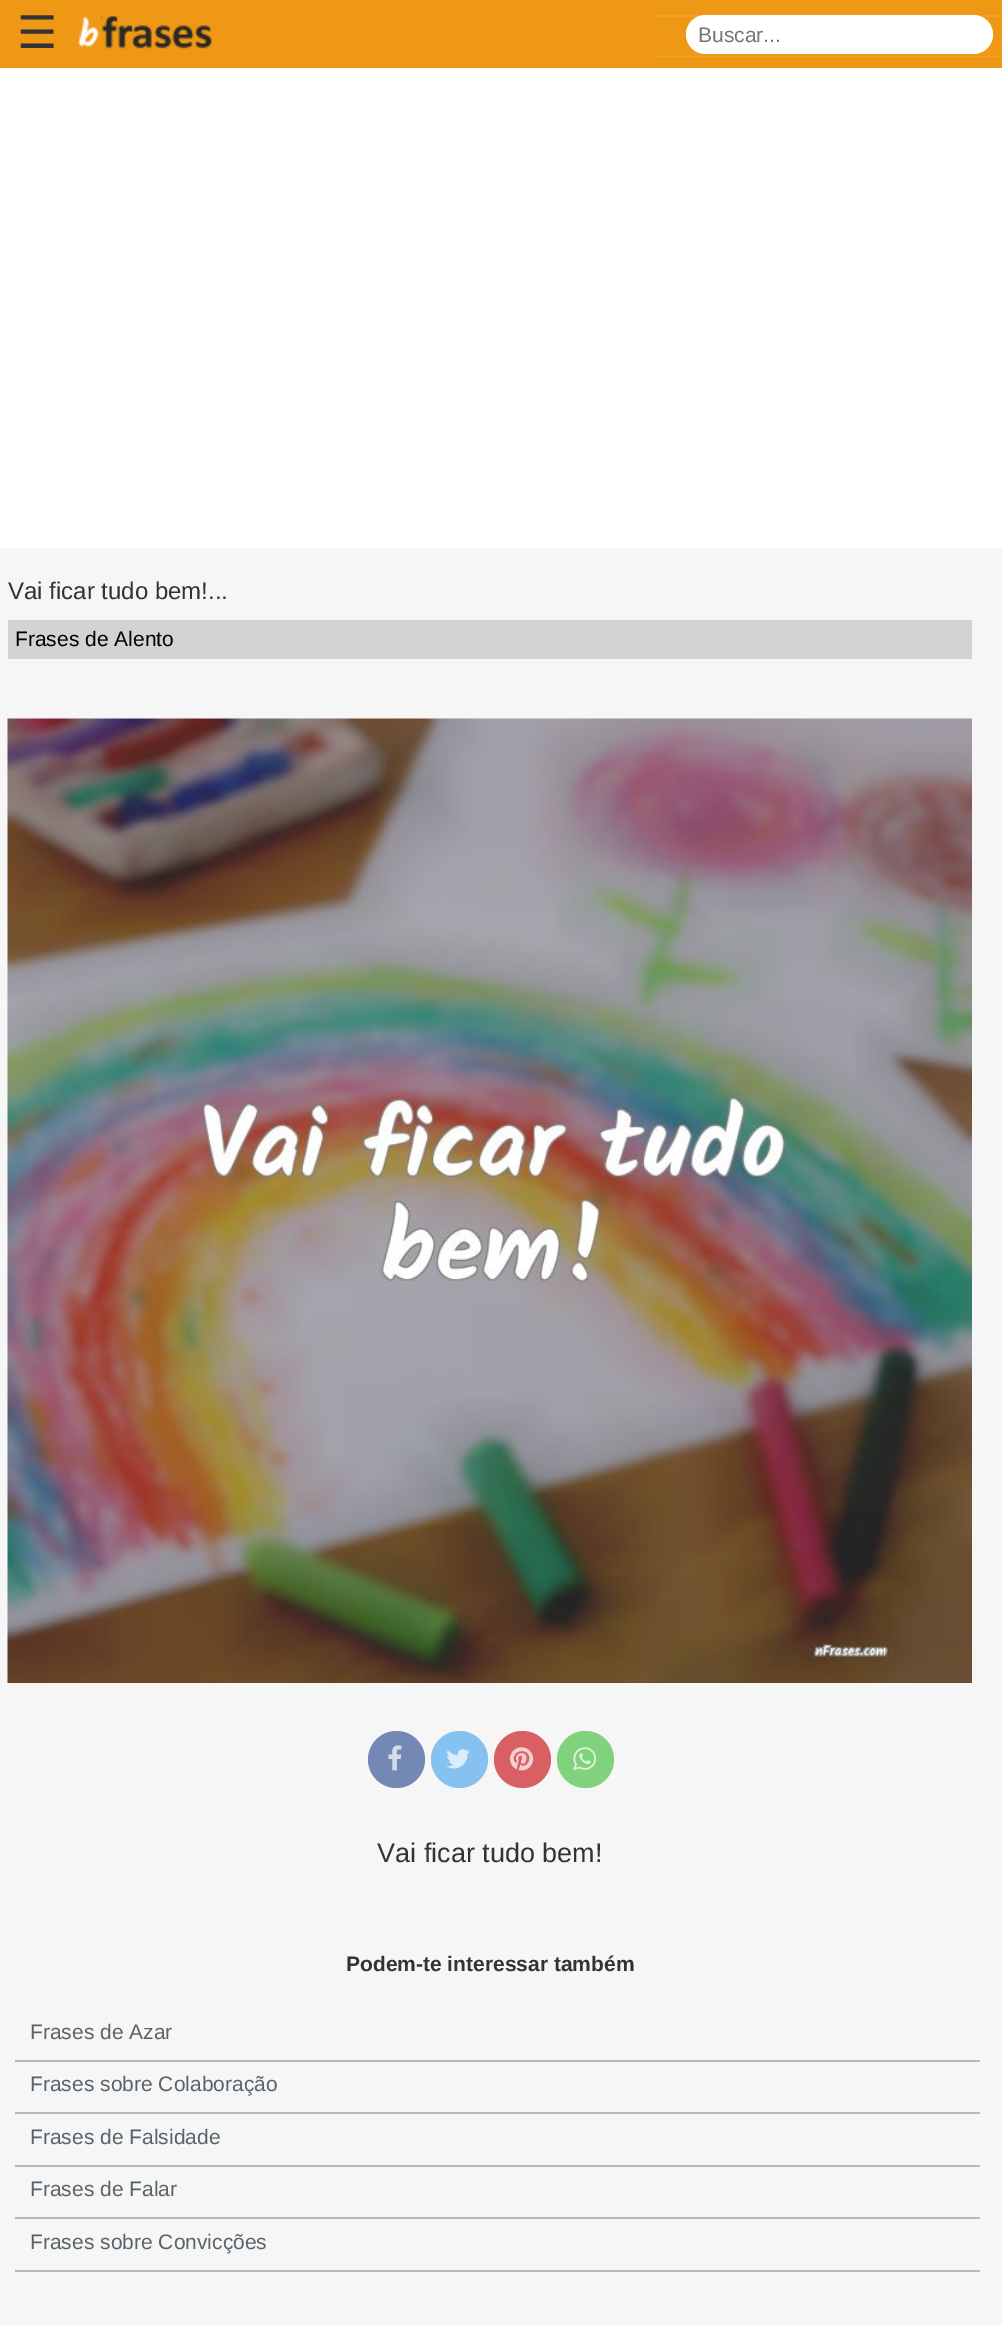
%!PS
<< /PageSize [1002 2325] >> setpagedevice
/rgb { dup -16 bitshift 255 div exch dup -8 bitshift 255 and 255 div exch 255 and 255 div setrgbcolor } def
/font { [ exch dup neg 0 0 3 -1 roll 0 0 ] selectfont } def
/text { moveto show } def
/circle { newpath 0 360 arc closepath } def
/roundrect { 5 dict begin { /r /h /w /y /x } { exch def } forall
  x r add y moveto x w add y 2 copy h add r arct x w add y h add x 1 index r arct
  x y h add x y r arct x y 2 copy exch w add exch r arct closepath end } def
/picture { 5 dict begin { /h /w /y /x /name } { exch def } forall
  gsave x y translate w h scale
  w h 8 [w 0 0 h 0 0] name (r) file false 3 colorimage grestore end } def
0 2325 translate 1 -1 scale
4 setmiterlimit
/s1 { /DejaVuSans-Regular 45 font 16#333333 rgb } def
/s2 { /LiberationSans-Regular 21 font 16#757575 rgb } def
/s3 { /LiberationSans-Regular 24 font 16#333333 rgb } def
/s4 { /LiberationSans-Regular 21 font 16#000000 rgb } def
/s5 { /LiberationSans-Regular 27 font 16#333333 rgb } def
/s6 { /LiberationSans-Bold 21 font 16#333333 rgb } def
/s7 { /LiberationSans-Regular 21 font 16#58646B rgb } def
16#FFFFFF rgb
0 0 1002 2325 rectfill
16#EF9816 rgb
0 0 1002 68 rectfill
s1
(☰) 17 48 text
(pic1.raw) 77 16 135 33 picture
16#F1A22D rgb
656 56 346 1 rectfill
656 15 346 2 rectfill
16#FFFFFF rgb
686 15 307 39 19.5 roundrect fill
s2
(Buscar...) 698 42 text
16#F6F6F6 rgb
0 548 1002 1777 rectfill
s3
(Vai ficar tudo bem!...) 8 599 text
16#D3D3D3 rgb
8 620 964 39 rectfill
s4
(Frases de Alento) 15 646 text
(pic2.raw) 7 718 965 965 picture
16#7388B4 rgb
396.5 1759.5 28.5 circle fill
(pic3.raw) 388 1745 14 26 picture
16#85C2F0 rgb
459.5 1759.5 28.5 circle fill
(pic4.raw) 446 1749 24 20 picture
16#D86065 rgb
522.5 1759.5 28.5 circle fill
(pic5.raw) 510 1747 24 24 picture
16#80D27C rgb
585.5 1759.5 28.5 circle fill
(pic6.raw) 573 1747 24 24 picture
s5
(Vai ficar tudo bem!) 377 1862 text
s6
(Podem-te interessar também) 346 1971 text
16#B9B7B7 rgb
15 2060 965 2 rectfill
s7
(Frases de Azar) 30 2039 text
16#B9B7B7 rgb
15 2112 965 2 rectfill
s7
(Frases sobre Colaboração) 30 2091 text
16#B9B7B7 rgb
15 2165 965 2 rectfill
s7
(Frases de Falsidade) 30 2144 text
16#B9B7B7 rgb
15 2217 965 2 rectfill
s7
(Frases de Falar) 30 2196 text
16#B9B7B7 rgb
15 2270 965 2 rectfill
s7
(Frases sobre Convicções) 30 2249 text
showpage
